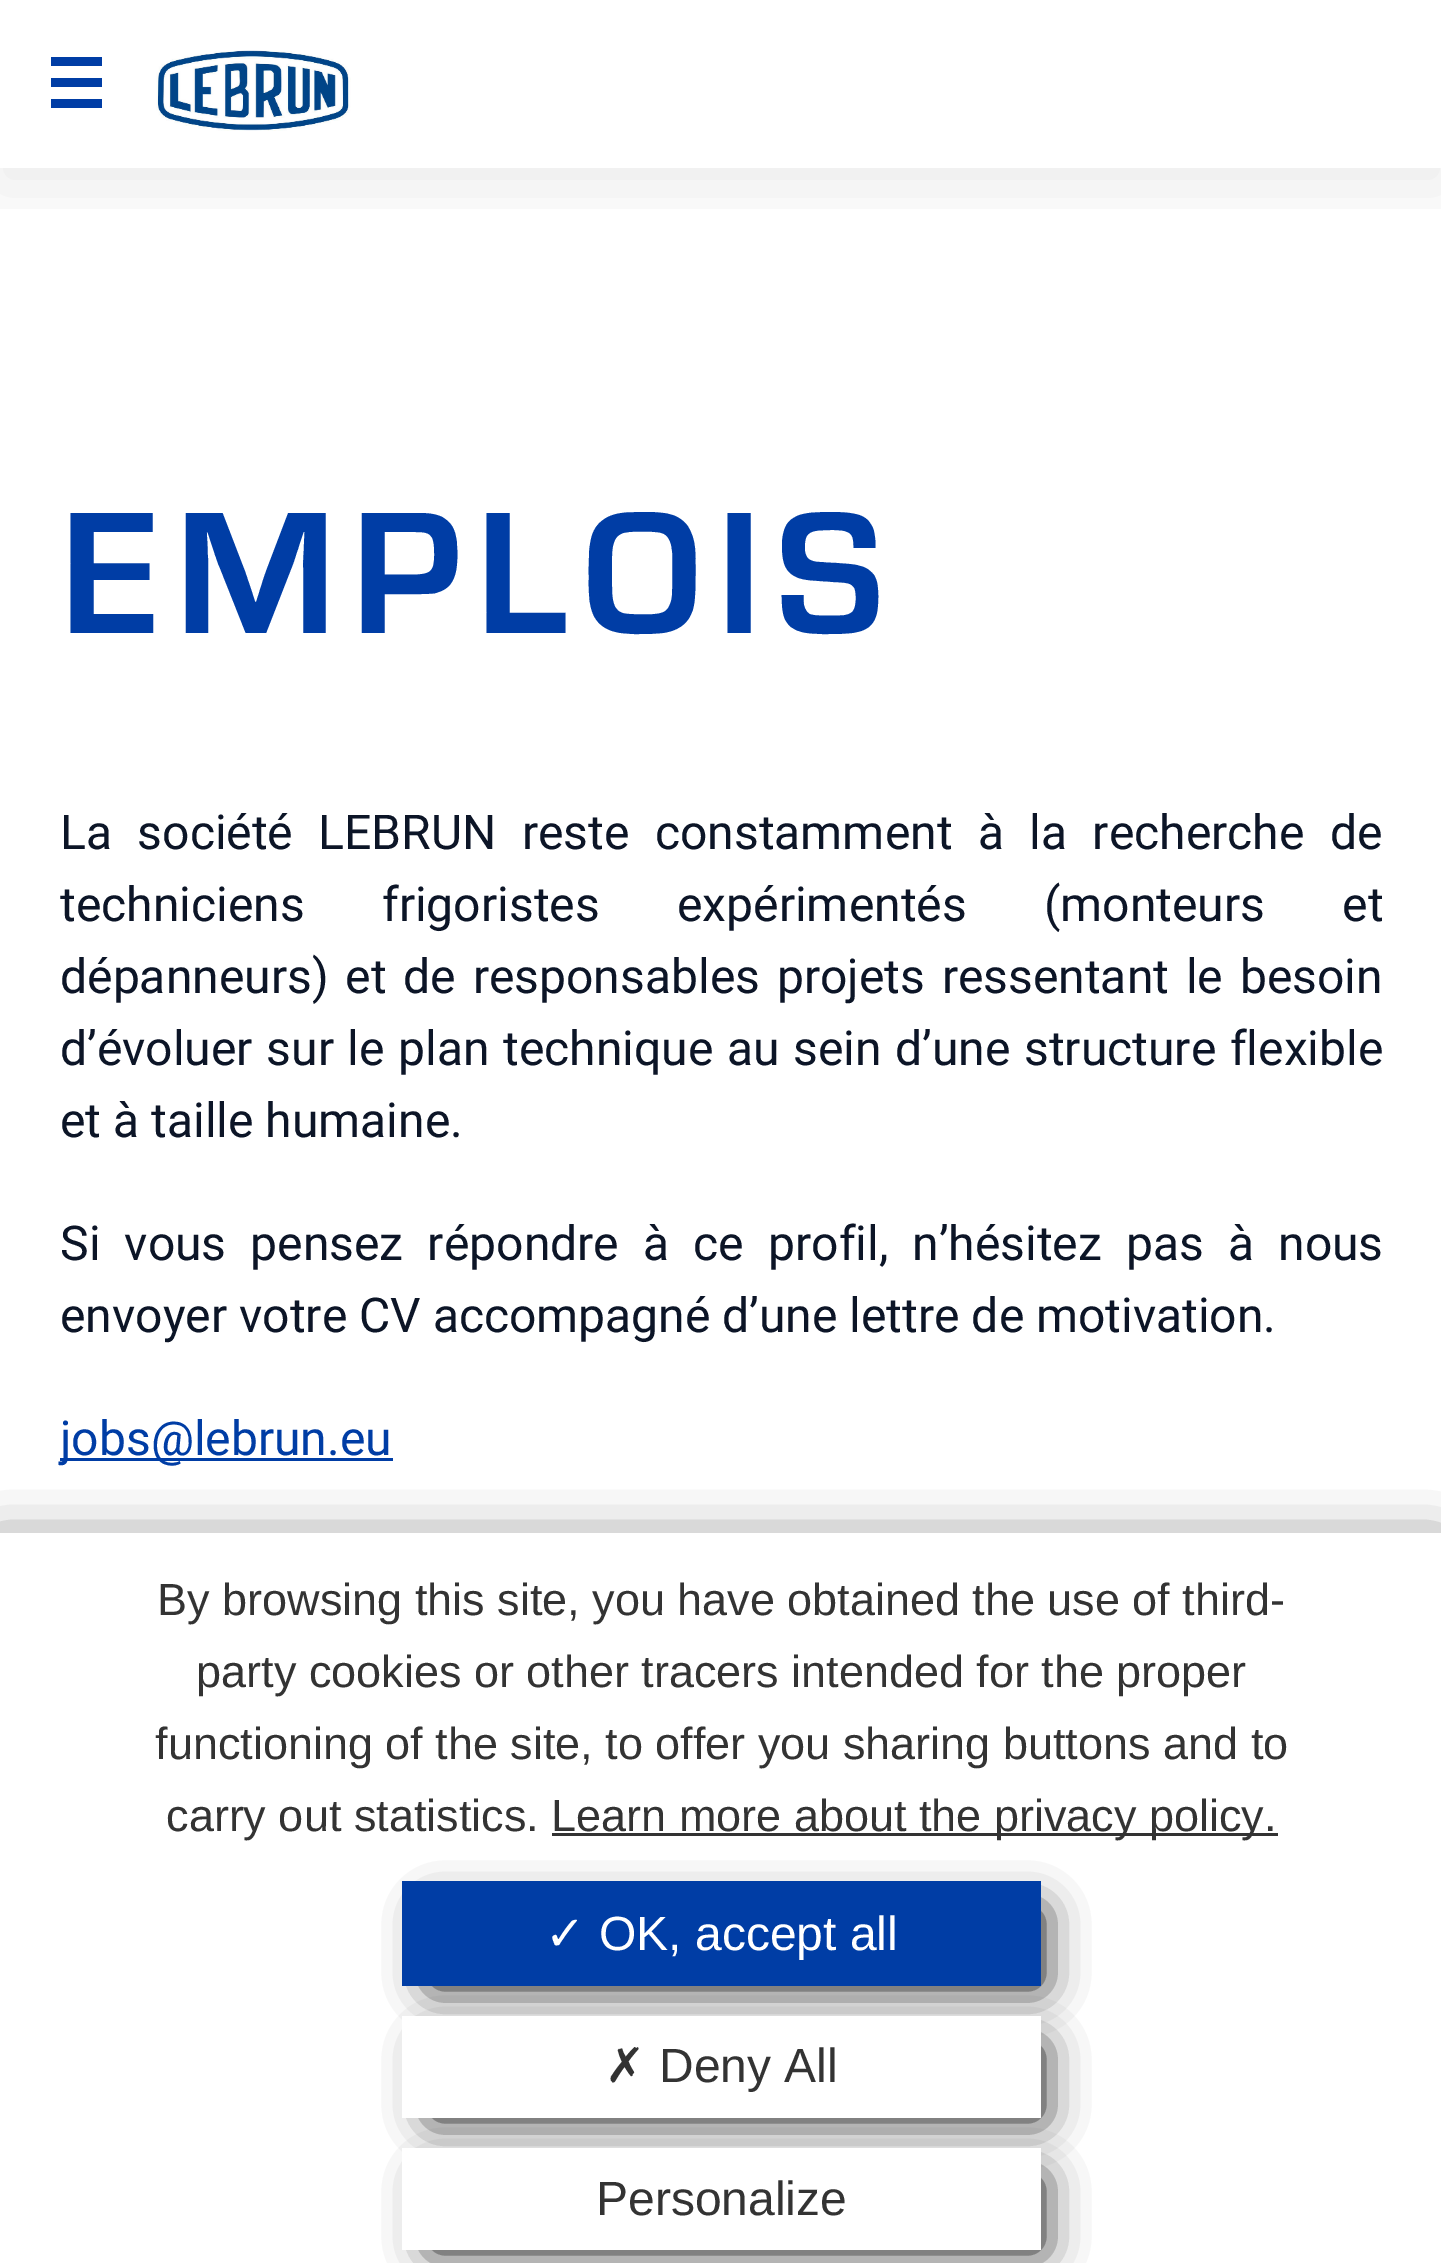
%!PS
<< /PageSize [1441 2263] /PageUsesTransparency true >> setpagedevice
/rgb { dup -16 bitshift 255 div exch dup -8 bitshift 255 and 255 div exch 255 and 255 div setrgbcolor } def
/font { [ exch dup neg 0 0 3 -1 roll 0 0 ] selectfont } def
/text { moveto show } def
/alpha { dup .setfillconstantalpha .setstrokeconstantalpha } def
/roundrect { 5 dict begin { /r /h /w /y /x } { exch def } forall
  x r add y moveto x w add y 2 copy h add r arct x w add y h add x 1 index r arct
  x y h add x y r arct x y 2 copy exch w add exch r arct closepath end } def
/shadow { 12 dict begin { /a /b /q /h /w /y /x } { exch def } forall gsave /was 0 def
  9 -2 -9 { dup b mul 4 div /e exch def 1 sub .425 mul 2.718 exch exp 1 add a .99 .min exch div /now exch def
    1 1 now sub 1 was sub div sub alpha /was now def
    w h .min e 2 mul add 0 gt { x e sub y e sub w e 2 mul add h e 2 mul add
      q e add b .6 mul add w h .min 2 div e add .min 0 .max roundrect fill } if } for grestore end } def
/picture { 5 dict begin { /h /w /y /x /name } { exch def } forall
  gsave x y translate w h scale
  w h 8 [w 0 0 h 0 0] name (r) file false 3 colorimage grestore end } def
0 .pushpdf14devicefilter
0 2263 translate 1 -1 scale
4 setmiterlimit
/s1 { /Roboto-Regular 48 font 16#0C1527 rgb } def
/s2 { /Roboto-Regular 48 font 16#003DA5 rgb } def
/s3 { /LiberationSans-Regular 45 font 16#333333 rgb } def
/s4 { /DejaVuSans-Regular 48 font 16#FFFFFF rgb } def
/s5 { /LiberationSans-Regular 48 font 16#FFFFFF rgb } def
/s6 { /DejaVuSans-Regular 48 font 16#333333 rgb } def
/s7 { /LiberationSans-Regular 48 font 16#333333 rgb } def
16#FFFFFF rgb
0 0 1441 2263 rectfill
gsave
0 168 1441 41 rectclip
16#000000 rgb
-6 9 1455 180 0 36 0.07 shadow
grestore
16#003DA5 rgb
51 78 51 9 rectfill
51 57 51 9 rectfill
51 99 51 9 rectfill
(pic1.raw) 156 50 195 81 picture
/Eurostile-Bold 180 font
60 633 moveto 15 0 (EMPLOIS) ashow
/Roboto-Regular 48 font
16#0C1527 rgb
60 849 moveto 13.5 0 32 (La société LEBRUN reste constamment à la recherche de) widthshow
60 921 moveto 65.5 0 32 (techniciens frigoristes expérimentés \(monteurs et) widthshow
60 993 moveto 5 0 32 (dépanneurs\) et de responsables projets ressentant le besoin) widthshow
60 1065 moveto 1.75 0 32 (d’évoluer sur le plan technique au sein d’une structure flexible) widthshow
(et à taille humaine.) 60 1137 text
60 1260 moveto 12.25 0 32 (Si vous pensez répondre à ce profil, n’hésitez pas à nous) widthshow
(envoyer votre CV accompagné d’une lettre de motivation.) 60 1332 text
16#003DA5 rgb
60 1458 333 3 rectfill
(jobs@lebrun.eu) 60 1455 text
16#000000 rgb
-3 1557 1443 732 0 30 1 shadow
16#FFFFFF rgb
0 1533 1441 730 rectfill
s3
(By browsing this site, you have obtained the use of third-) 157 1615 text
(party cookies or other tracers intended for the proper) 196 1687 text
(functioning of the site, to offer you sharing buttons and to) 155 1759 text
(carry out statistics.) 166 1831 text
552 1833 726 3 rectfill
(Learn more about the privacy policy.) 551 1831 text
16#000000 rgb
432 1911 609 75 0 22.5 1 shadow
16#003DA5 rgb
402 1881 639 105 rectfill
s4
(✓) 545 1950 text
s5
(OK, accept all) 599 1950 text
16#000000 rgb
432 2046 609 72 0 22.5 1 shadow
16#FFFFFF rgb
402 2016 639 102 rectfill
s6
(✗) 605 2082 text
s7
(Deny All) 659 2082 text
16#000000 rgb
432 2178 609 72 0 22.5 1 shadow
16#FFFFFF rgb
402 2148 639 102 rectfill
s7
(Personalize) 596 2215 text
.poppdf14devicefilter showpage
